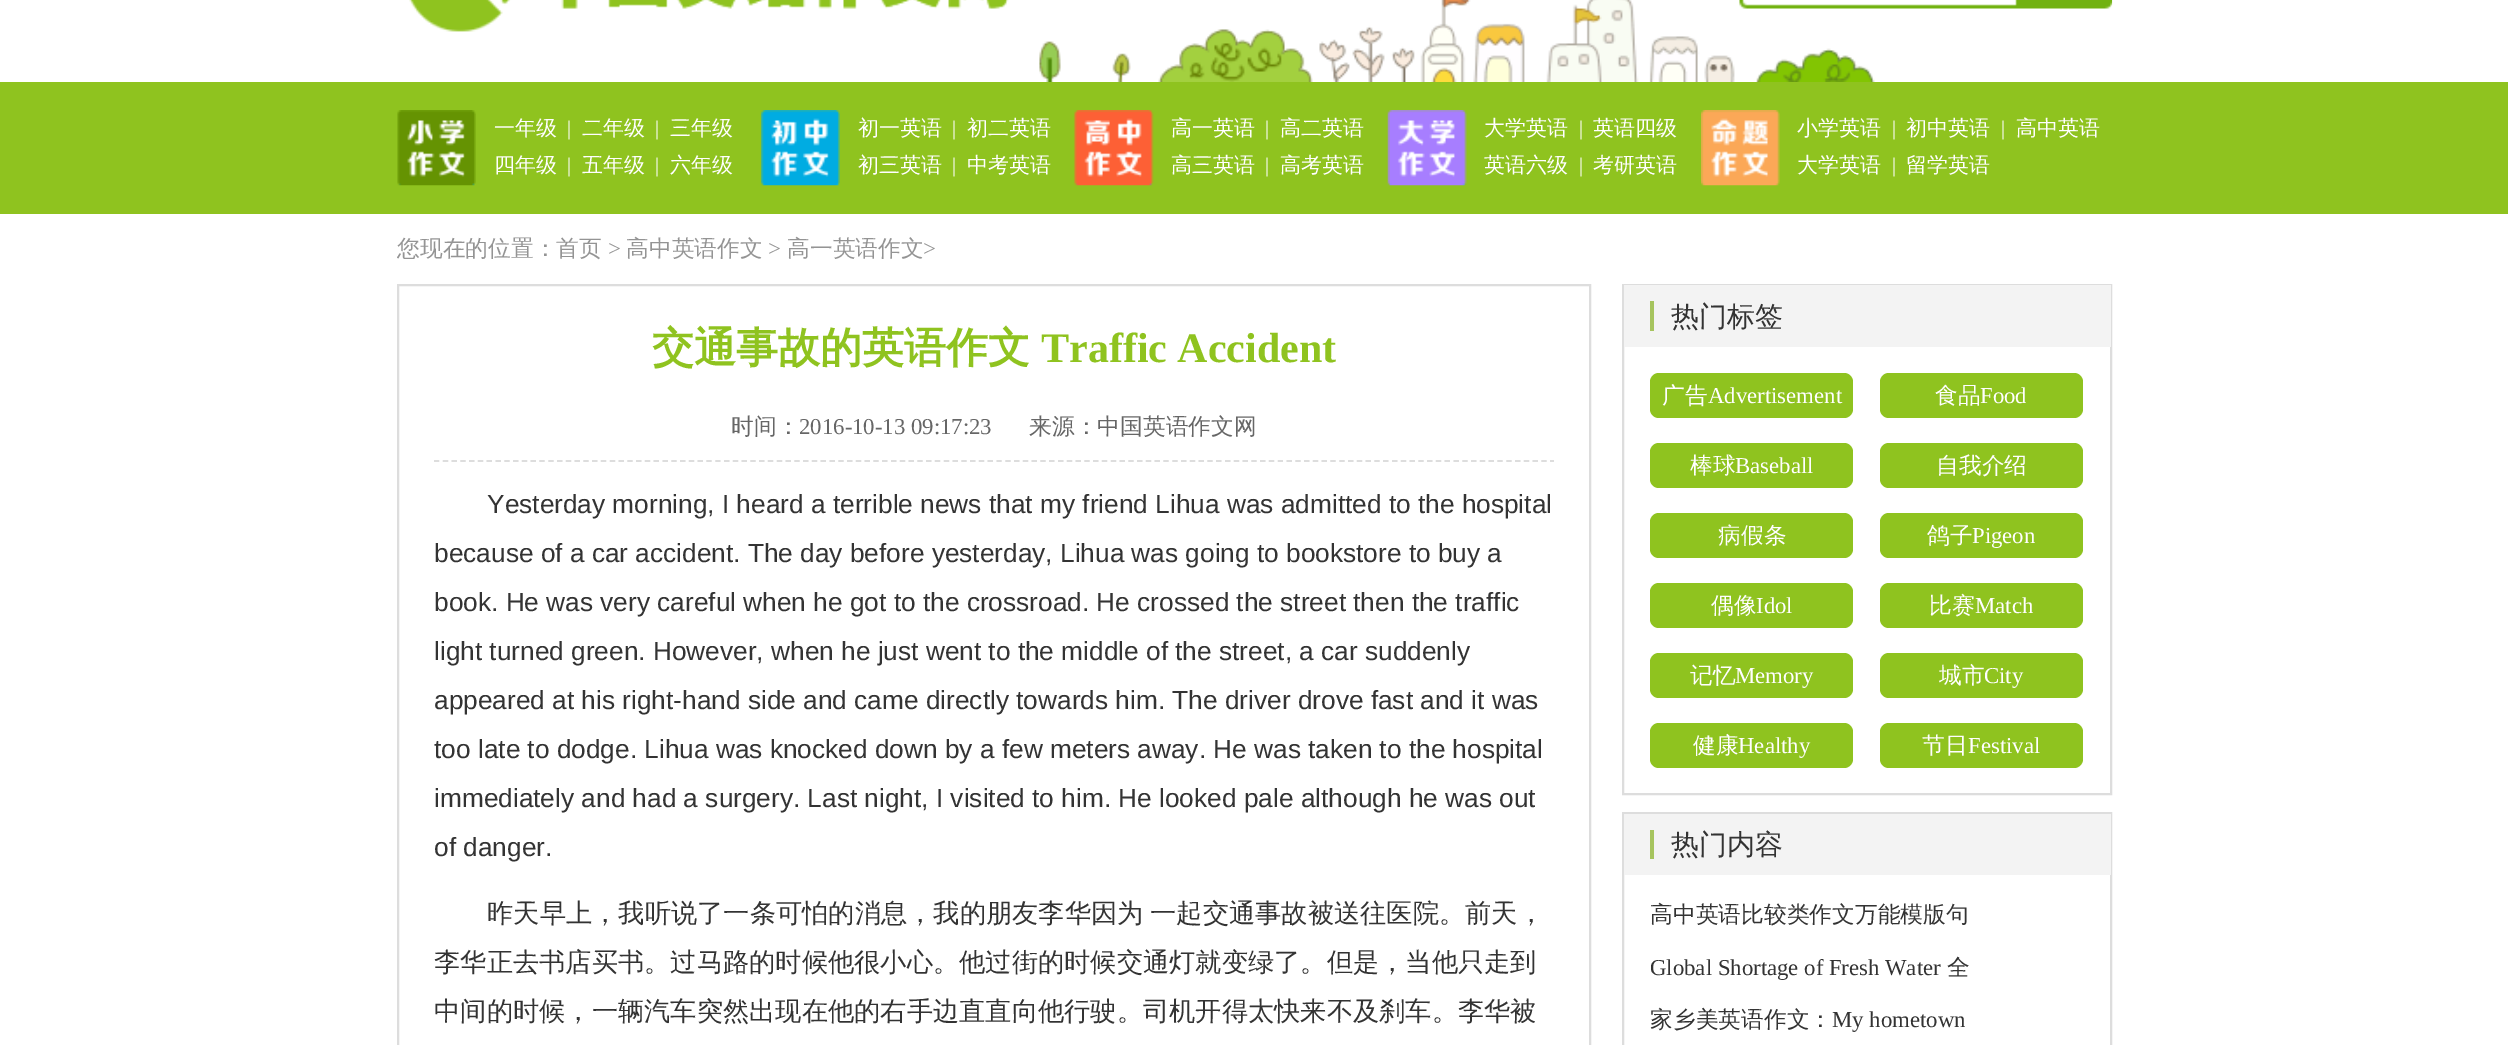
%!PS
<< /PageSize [2508 1045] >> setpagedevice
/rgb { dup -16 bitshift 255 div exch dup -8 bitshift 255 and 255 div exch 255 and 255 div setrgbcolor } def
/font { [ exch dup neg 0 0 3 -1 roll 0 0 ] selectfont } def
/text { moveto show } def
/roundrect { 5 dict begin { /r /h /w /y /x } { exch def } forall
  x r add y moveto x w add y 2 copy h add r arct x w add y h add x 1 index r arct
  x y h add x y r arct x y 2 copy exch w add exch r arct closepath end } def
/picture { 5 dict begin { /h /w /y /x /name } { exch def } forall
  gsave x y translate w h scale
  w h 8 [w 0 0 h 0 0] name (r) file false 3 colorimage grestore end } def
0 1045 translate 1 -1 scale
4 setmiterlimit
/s1 { /WenQuanYiZenHei-Medium 21 font 16#FFFEFF rgb } def
/s2 { /LiberationSerif-Regular 21 font 16#FFFEFF rgb } def
/s3 { /WenQuanYiZenHei-Medium 22.75 font 16#949494 rgb } def
/s4 { /LiberationSerif-Regular 22.75 font 16#949494 rgb } def
/s5 { /WenQuanYiZenHei-Bold 42 font 16#8FC31F rgb } def
/s6 { /LiberationSerif-Bold 42 font 16#8FC31F rgb } def
/s7 { /WenQuanYiZenHei-Medium 22.75 font 16#666666 rgb } def
/s8 { /LiberationSerif-Regular 22.75 font 16#666666 rgb } def
/s9 { /LiberationSans-Regular 26.25 font 16#333333 rgb } def
/s10 { /WenQuanYiZenHei-Medium 26.25 font 16#333333 rgb } def
/s11 { /WenQuanYiZenHei-Medium 28 font 16#333333 rgb } def
/s12 { /WenQuanYiZenHei-Medium 22.75 font 16#FFFEFF rgb } def
/s13 { /LiberationSerif-Regular 22.75 font 16#FFFEFF rgb } def
/s14 { /WenQuanYiZenHei-Medium 22.75 font 16#333333 rgb } def
/s15 { /LiberationSerif-Regular 22.75 font 16#333333 rgb } def
16#FFFFFF rgb
0 0 2508 1045 rectfill
(pic1.raw) 1039 0 836 82 picture
(pic2.raw) 409 0 600 32 picture
(pic3.raw) 1739 0 374 9 picture
16#8FC31F rgb
0 82 2508 132 rectfill
(pic4.raw) 397 110 79 76 picture
s1
(一年级) 494 135 text
s2
(|) 567 135 text
s1
(二年级) 582 135 text
s2
(|) 655 135 text
s1
(三年级) 670 135 text
(四年级) 494 172 text
s2
(|) 567 172 text
s1
(五年级) 582 172 text
s2
(|) 655 172 text
s1
(六年级) 670 172 text
(pic5.raw) 761 110 79 76 picture
(初一英语) 858 135 text
s2
(|) 952 135 text
s1
(初二英语) 967 135 text
(初三英语) 858 172 text
s2
(|) 952 172 text
s1
(中考英语) 967 172 text
(pic6.raw) 1074 110 80 76 picture
(高一英语) 1171 135 text
s2
(|) 1265 135 text
s1
(高二英语) 1280 135 text
(高三英语) 1171 172 text
s2
(|) 1265 172 text
s1
(高考英语) 1280 172 text
(pic7.raw) 1387 110 80 76 picture
(大学英语) 1484 135 text
s2
(|) 1579 135 text
s1
(英语四级) 1593 135 text
(英语六级) 1484 172 text
s2
(|) 1579 172 text
s1
(考研英语) 1593 172 text
(pic8.raw) 1701 110 79 76 picture
(小学英语) 1797 135 text
s2
(|) 1892 135 text
s1
(初中英语) 1906 135 text
s2
(|) 2001 135 text
s1
(高中英语) 2016 135 text
(大学英语) 1797 172 text
s2
(|) 1892 172 text
s1
(留学英语) 1906 172 text
s3
(您现在的位置：首页) 397 256 text
s4
(>) 608 256 text
s3
(高中英语作文) 626 256 text
s4
(>) 768 256 text
s3
(高一英语作文) 787 256 text
s4
(>) 923 256 text
16#DDDDDD rgb
2 setlinewidth
398 285 1192 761 rectstroke
s5
(交通事故的英语作文) 652 362 text
s6
(Traffic Accident) 1041 362 text
16#DDDDDD rgb
1.8 setlinewidth
[5.25 3.54] 0 setdash
434 461 moveto 1554 461 lineto stroke
s7
(时间：) 731 434 text
s8
(2016-10-13 09:17:23) 799 434 text
s7
(来源：中国英语作文网) 1029 434 text
s9
(Yesterday morning, I heard a terrible news that my friend Lihua was admitted to the hospital) 487 513 text
(because of a car accident. The day before yesterday, Lihua was going to bookstore to buy a) 434 562 text
(book. He was very careful when he got to the crossroad. He crossed the street then the traffic) 434 611 text
(light turned green. However, when he just went to the middle of the street, a car suddenly) 434 660 text
(appeared at his right-hand side and came directly towards him. The driver drove fast and it was) 434 709 text
(too late to dodge. Lihua was knocked down by a few meters away. He was taken to the hospital) 434 758 text
(immediately and had a surgery. Last night, I visited to him. He looked pale although he was out) 434 807 text
(of danger.) 434 856 text
/WenQuanYiZenHei-Medium 26.25 font
487 922 moveto -1 0 32 (昨天早上，我听说了一条可怕的消息，我的朋友李华因为 一起交通事故被送往医院。前天，) widthshow
(李华正去书店买书。过马路的时候他很小心。他过街的时候交通灯就变绿了。但是，当他只走到) 434 971 text
(中间的时候，一辆汽车突然出现在他的右手边直直向他行驶。司机开得太快来不及刹车。李华被) 434 1020 text
16#DDDDDD rgb
2 setlinewidth
[] 0 setdash
1623 285 488 509 rectstroke
16#F3F3F3 rgb
1624 285 487 62 rectfill
s11
(热门标签) 1671 326 text
16#A6C45E rgb
1650 301 4 30 rectfill
16#8FC31F rgb
1650 373 203 45 9 roundrect fill
s12
(广告) 1662 403 text
s13
(Advertisement) 1708 403 text
16#8FC31F rgb
1880 373 203 45 9 roundrect fill
s12
(食品) 1935 403 text
s13
(Food) 1980 403 text
16#8FC31F rgb
1650 443 203 45 9 roundrect fill
s12
(棒球) 1690 473 text
s13
(Baseball) 1735 473 text
16#8FC31F rgb
1880 443 203 45 9 roundrect fill
s12
(自我介绍) 1936 473 text
16#8FC31F rgb
1650 513 203 45 9 roundrect fill
s12
(病假条) 1718 543 text
16#8FC31F rgb
1880 513 203 45 9 roundrect fill
s12
(鸽子) 1927 543 text
s13
(Pigeon) 1972 543 text
16#8FC31F rgb
1650 583 203 45 9 roundrect fill
s12
(偶像) 1711 613 text
s13
(Idol) 1756 613 text
16#8FC31F rgb
1880 583 203 45 9 roundrect fill
s12
(比赛) 1929 613 text
s13
(Match) 1975 613 text
16#8FC31F rgb
1650 653 203 45 9 roundrect fill
s12
(记忆) 1690 683 text
s13
(Memory) 1735 683 text
16#8FC31F rgb
1880 653 203 45 9 roundrect fill
s12
(城市) 1939 683 text
s13
(City) 1984 683 text
16#8FC31F rgb
1650 723 203 45 9 roundrect fill
s12
(健康) 1693 753 text
s13
(Healthy) 1738 753 text
16#8FC31F rgb
1880 723 203 45 9 roundrect fill
s12
(节日) 1922 753 text
s13
(Festival) 1968 753 text
16#DDDDDD rgb
1623 813 488 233 rectstroke
16#F3F3F3 rgb
1624 814 487 61 rectfill
s11
(热门内容) 1671 854 text
16#A6C45E rgb
1650 830 4 29 rectfill
s14
(高中英语比较类作文万能模版句) 1650 922 text
s15
(Global Shortage of Fresh Water) 1650 975 text
s14
(全) 1947 975 text
(家乡美英语作文：) 1650 1027 text
s15
(My hometown) 1832 1027 text
showpage
